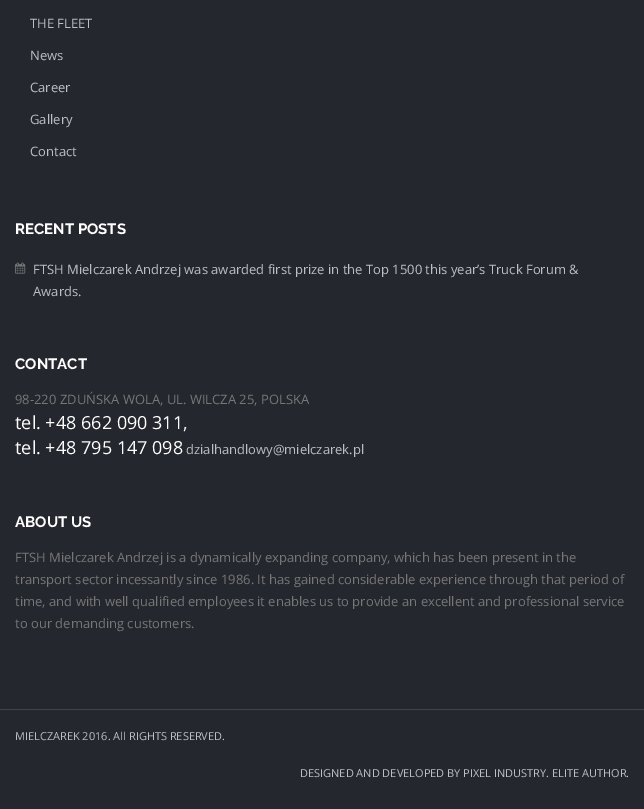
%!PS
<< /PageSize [644 809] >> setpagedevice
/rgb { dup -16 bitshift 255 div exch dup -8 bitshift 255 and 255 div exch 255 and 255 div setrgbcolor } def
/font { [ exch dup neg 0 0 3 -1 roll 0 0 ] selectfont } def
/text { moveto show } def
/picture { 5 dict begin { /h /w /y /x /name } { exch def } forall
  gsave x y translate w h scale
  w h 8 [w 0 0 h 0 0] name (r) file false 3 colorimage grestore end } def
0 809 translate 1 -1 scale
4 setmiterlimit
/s1 { /OpenSans-Regular 13 font 16#BCC0C4 rgb } def
/s2 { /Raleway-Bold 15 font 16#FFFFFF rgb } def
/s3 { /OpenSans-Regular 13 font 16#777777 rgb } def
/s4 { /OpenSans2-Regular 13 font 16#777777 rgb } def
/s5 { /OpenSans-Regular 18 font 16#FFFFFF rgb } def
/s6 { /OpenSans-Regular 11 font 16#BCC0C4 rgb } def
16#25272E rgb
0 0 644 809 rectfill
s1
(THE FLEET) 30 28 text
(News) 30 60 text
(Career) 30 92 text
(Gallery) 30 124 text
(Contact) 30 156 text
s2
(RECENT POSTS) 15 234 text
(pic1.raw) 15 262 11 12 picture
s1
(FTSH Mielczarek Andrzej was awarded first prize in the Top 1500 this year’s Truck Forum &) 33 274 text
(Awards.) 33 296 text
s2
(CONTACT) 15 369 text
s3
(98-220 ZDU) 15 404 text
s4
(Ń) 86 404 text
s3
(SKA WOLA, UL. WILCZA 25, POLSKA) 96 404 text
s5
(tel. +48 662 090 311,) 15 429 text
(tel. +48 795 147 098) 15 454 text
s1
(dzialhandlowy@mielczarek.pl) 186 454 text
s2
(ABOUT US) 15 527 text
s3
(FTSH Mielczarek Andrzej is a dynamically expanding company, which has been present in the) 15 562 text
(transport sector incessantly since 1986. It has gained considerable experience through that period of) 15 584 text
(time, and with well qualified employees it enables us to provide an excellent and professional service) 15 606 text
(to our demanding customers.) 15 628 text
16#384653 rgb
0 709 644 1 rectfill
s6
(MIELCZAREK 2016. All RIGHTS RESERVED.) 15 740 text
(DESIGNED AND DEVELOPED BY PIXEL INDUSTRY. ELITE AUTHOR.) 300 777 text
showpage
